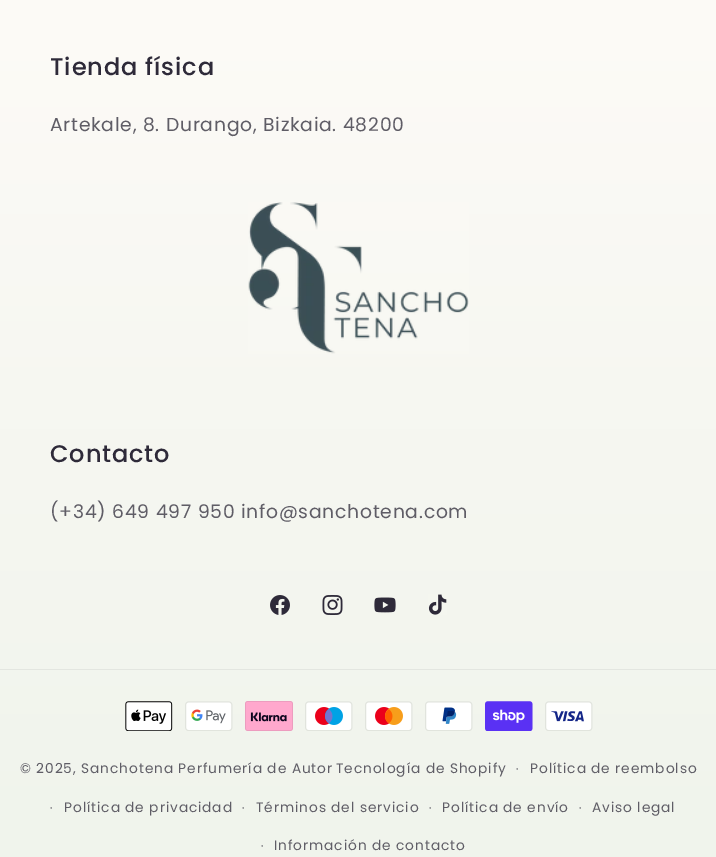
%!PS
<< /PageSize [716 857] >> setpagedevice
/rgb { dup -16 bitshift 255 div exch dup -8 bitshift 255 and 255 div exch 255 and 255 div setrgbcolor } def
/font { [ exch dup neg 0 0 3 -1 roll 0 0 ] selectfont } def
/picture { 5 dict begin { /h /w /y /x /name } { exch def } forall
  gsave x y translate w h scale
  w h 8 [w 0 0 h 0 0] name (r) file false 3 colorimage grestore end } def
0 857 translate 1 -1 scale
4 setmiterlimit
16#FFFFFF rgb
0 0 716 857 rectfill
gsave 0 0 moveto 716 0 lineto 716 857 lineto 0 857 lineto closepath clip newpath
<< /ShadingType 2 /ColorSpace /DeviceRGB /Coords [358 0 358 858] /Extend [true true] /Function << /FunctionType 2 /Domain [0 1] /C0 [0.992 0.984 0.969] /C1 [0.941 0.957 0.925] /N 1 >> >> shfill grestore
/Poppins-Medium 24 font
16#2E2A39 rgb
50 75 moveto 0.9 0 (Tienda física) ashow
/Poppins-Regular 18.75 font
16#5F5D66 rgb
50 131 moveto 0.75 0 (Artekale, 8. Durango, Bizkaia. 48200) ashow
(pic1.raw) 248 202 221 152 picture
/Poppins-Medium 24 font
16#2E2A39 rgb
50 462 moveto 0.9 0 (Contacto) ashow
/Poppins-Regular 18.75 font
16#5F5D66 rgb
50 518 moveto 0.75 0 (\(+34\) 649 497 950 info@sanchotena.com) ashow
(pic2.raw) 270 595 20 20 picture
(pic3.raw) 322 595 21 20 picture
(pic4.raw) 374 597 22 16 picture
(pic5.raw) 428 594 19 21 picture
16#E3E6E0 rgb
0 669 716 1 rectfill
(pic6.raw) 125 701 48 30 picture
(pic7.raw) 185 701 48 30 picture
(pic8.raw) 245 701 48 30 picture
(pic9.raw) 305 701 48 30 picture
(pic10.raw) 365 701 48 30 picture
(pic11.raw) 425 701 48 30 picture
(pic12.raw) 485 701 48 30 picture
(pic13.raw) 545 701 48 30 picture
/Poppins-Regular 13.75 font
16#5F5D66 rgb
20 773 moveto 0.9 0 (© 2025, Sanchotena Perfumería de Autor) ashow
/Poppins-Regular 12 font
516 773 moveto 0.9 0 (·) ashow
/Poppins-Regular 13.75 font
530 773 moveto 0.9 0 (Política de reembolso) ashow
/Poppins-Regular 12 font
50 812 moveto 0.9 0 (·) ashow
/Poppins-Regular 13.75 font
64 812 moveto 0.9 0 (Política de privacidad) ashow
/Poppins-Regular 12 font
242 812 moveto 0.9 0 (·) ashow
/Poppins-Regular 13.75 font
256 812 moveto 0.9 0 (Términos del servicio) ashow
/Poppins-Regular 12 font
429 812 moveto 0.9 0 (·) ashow
/Poppins-Regular 13.75 font
442 812 moveto 0.9 0 (Política de envío) ashow
/Poppins-Regular 12 font
579 812 moveto 0.9 0 (·) ashow
/Poppins-Regular 13.75 font
592 812 moveto 0.9 0 (Aviso legal) ashow
/Poppins-Regular 12 font
261 850 moveto 0.9 0 (·) ashow
/Poppins-Regular 13.75 font
274 850 moveto 0.9 0 (Información de contacto) ashow
336 773 moveto 0.9 0 (Tecnología de Shopify) ashow
showpage
